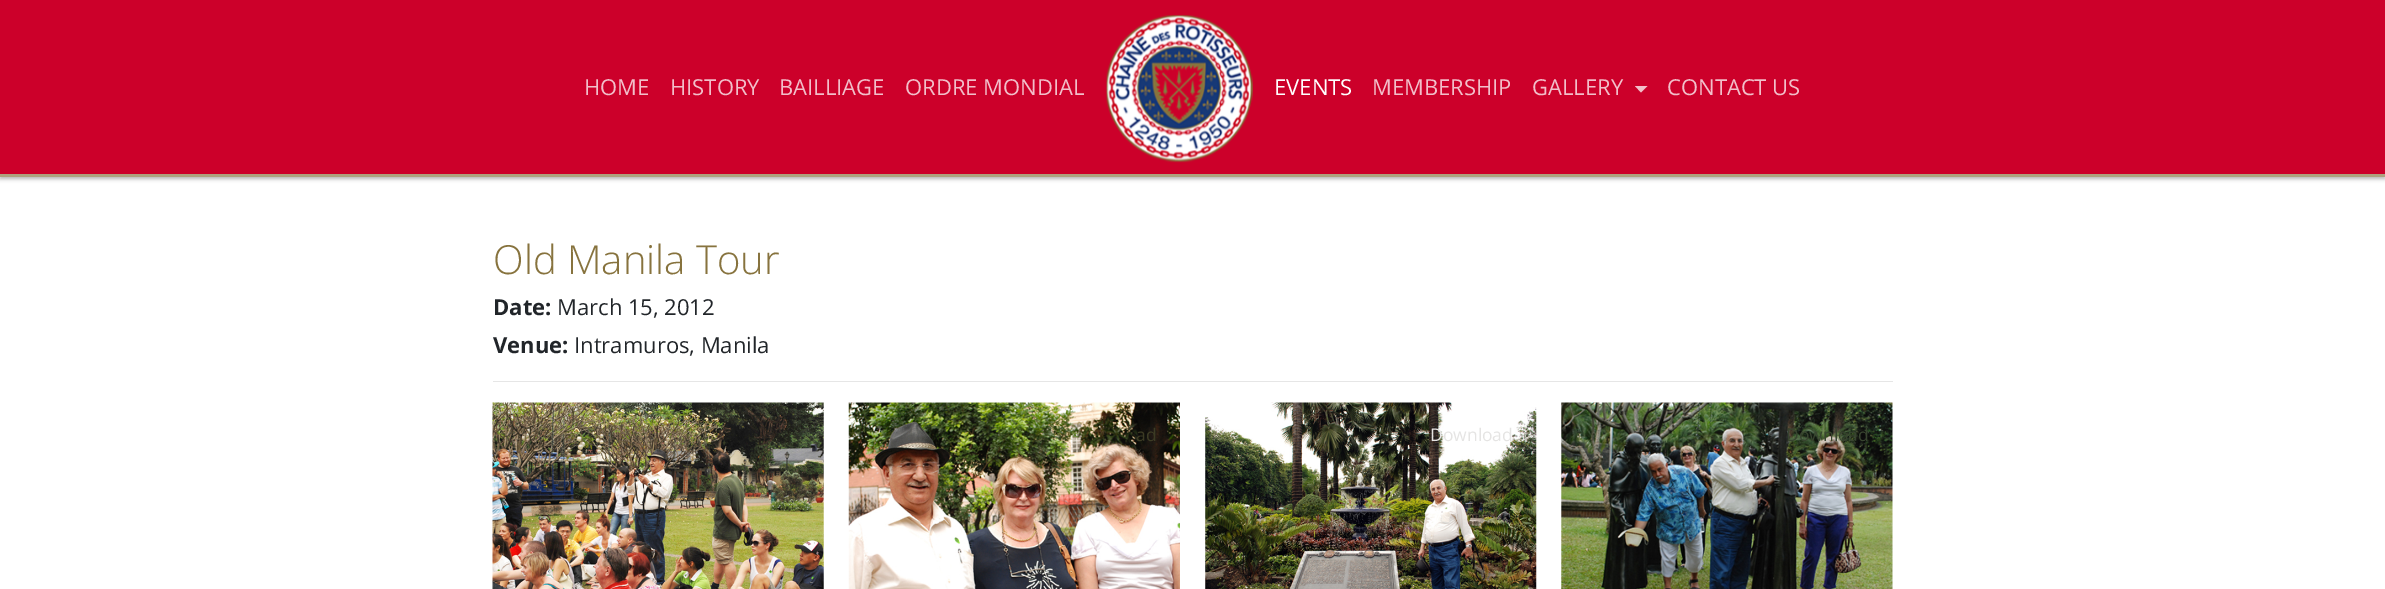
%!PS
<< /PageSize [2385 589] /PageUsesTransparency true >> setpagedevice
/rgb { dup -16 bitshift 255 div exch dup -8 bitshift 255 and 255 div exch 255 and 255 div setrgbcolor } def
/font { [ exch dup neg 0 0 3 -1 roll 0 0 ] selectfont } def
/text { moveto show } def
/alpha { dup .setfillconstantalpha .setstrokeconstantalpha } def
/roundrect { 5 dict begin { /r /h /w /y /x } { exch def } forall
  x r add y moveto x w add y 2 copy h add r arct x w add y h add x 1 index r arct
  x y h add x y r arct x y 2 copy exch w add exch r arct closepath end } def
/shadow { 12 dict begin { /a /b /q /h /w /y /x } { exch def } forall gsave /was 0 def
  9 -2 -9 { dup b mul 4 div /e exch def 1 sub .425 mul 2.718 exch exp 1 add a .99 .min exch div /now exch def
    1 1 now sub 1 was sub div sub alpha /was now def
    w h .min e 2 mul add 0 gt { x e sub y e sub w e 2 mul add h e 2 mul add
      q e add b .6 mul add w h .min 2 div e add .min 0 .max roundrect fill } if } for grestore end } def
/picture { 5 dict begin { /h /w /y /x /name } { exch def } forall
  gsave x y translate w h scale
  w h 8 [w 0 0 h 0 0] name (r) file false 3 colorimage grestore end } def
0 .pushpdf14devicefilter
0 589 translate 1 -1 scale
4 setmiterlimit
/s1 { /OpenSans-Regular 22 font 16#F2BFCA rgb } def
/s2 { /OpenSans-Regular 22 font 16#FFFFFF rgb } def
/s3 { /OpenSans-Light 40 font 16#87733E rgb } def
/s4 { /OpenSans-Bold 22 font 16#212529 rgb } def
/s5 { /OpenSans-Regular 22 font 16#212529 rgb } def
/s6 { /OpenSans-Regular 17.5 font 16#3C3B24 rgb } def
/s7 { /OpenSans-Regular 17.5 font 16#E5E4E3 rgb } def
/s8 { /OpenSans-Regular 17.5 font 16#38442F rgb } def
16#FFFFFF rgb
0 0 2385 589 rectfill
16#000000 rgb
0 3 2385 176 0 2 0.28 shadow
16#CC002A rgb
0 0 2385 174 rectfill
16#AEA27E rgb
0 174 2385 3 rectfill
s1
(HOME) 584 95 text
(HISTORY) 670 95 text
(BAILLIAGE) 779 95 text
(ORDRE MONDIAL) 905 95 text
(pic1.raw) 1106 15 147 148 picture
s2
(EVENTS) 1274 95 text
s1
(MEMBERSHIP) 1372 95 text
(GALLERY) 1532 95 text
1635 86 moveto 1647.5 86 lineto 1641 92.5 lineto closepath fill
(CONTACT US) 1667 95 text
s3
(Old Manila Tour) 493 274 text
s4
(Date:) 493 315 text
s5
(March 15, 2012) 557 315 text
s4
(Venue:) 493 353 text
s5
(Intramuros, Manila) 574 353 text
16#E6E6E6 rgb
493 381 1400 1 rectfill
(pic2.raw) 492 402 332 187 picture
(pic3.raw) 848 402 332 187 picture
s6
(ad) 1136 441 text
(pic4.raw) 1205 402 332 187 picture
s7
(Download) 1430 441 text
(pic5.raw) 1561 402 332 187 picture
s8
(Download) 1786 441 text
.poppdf14devicefilter showpage
